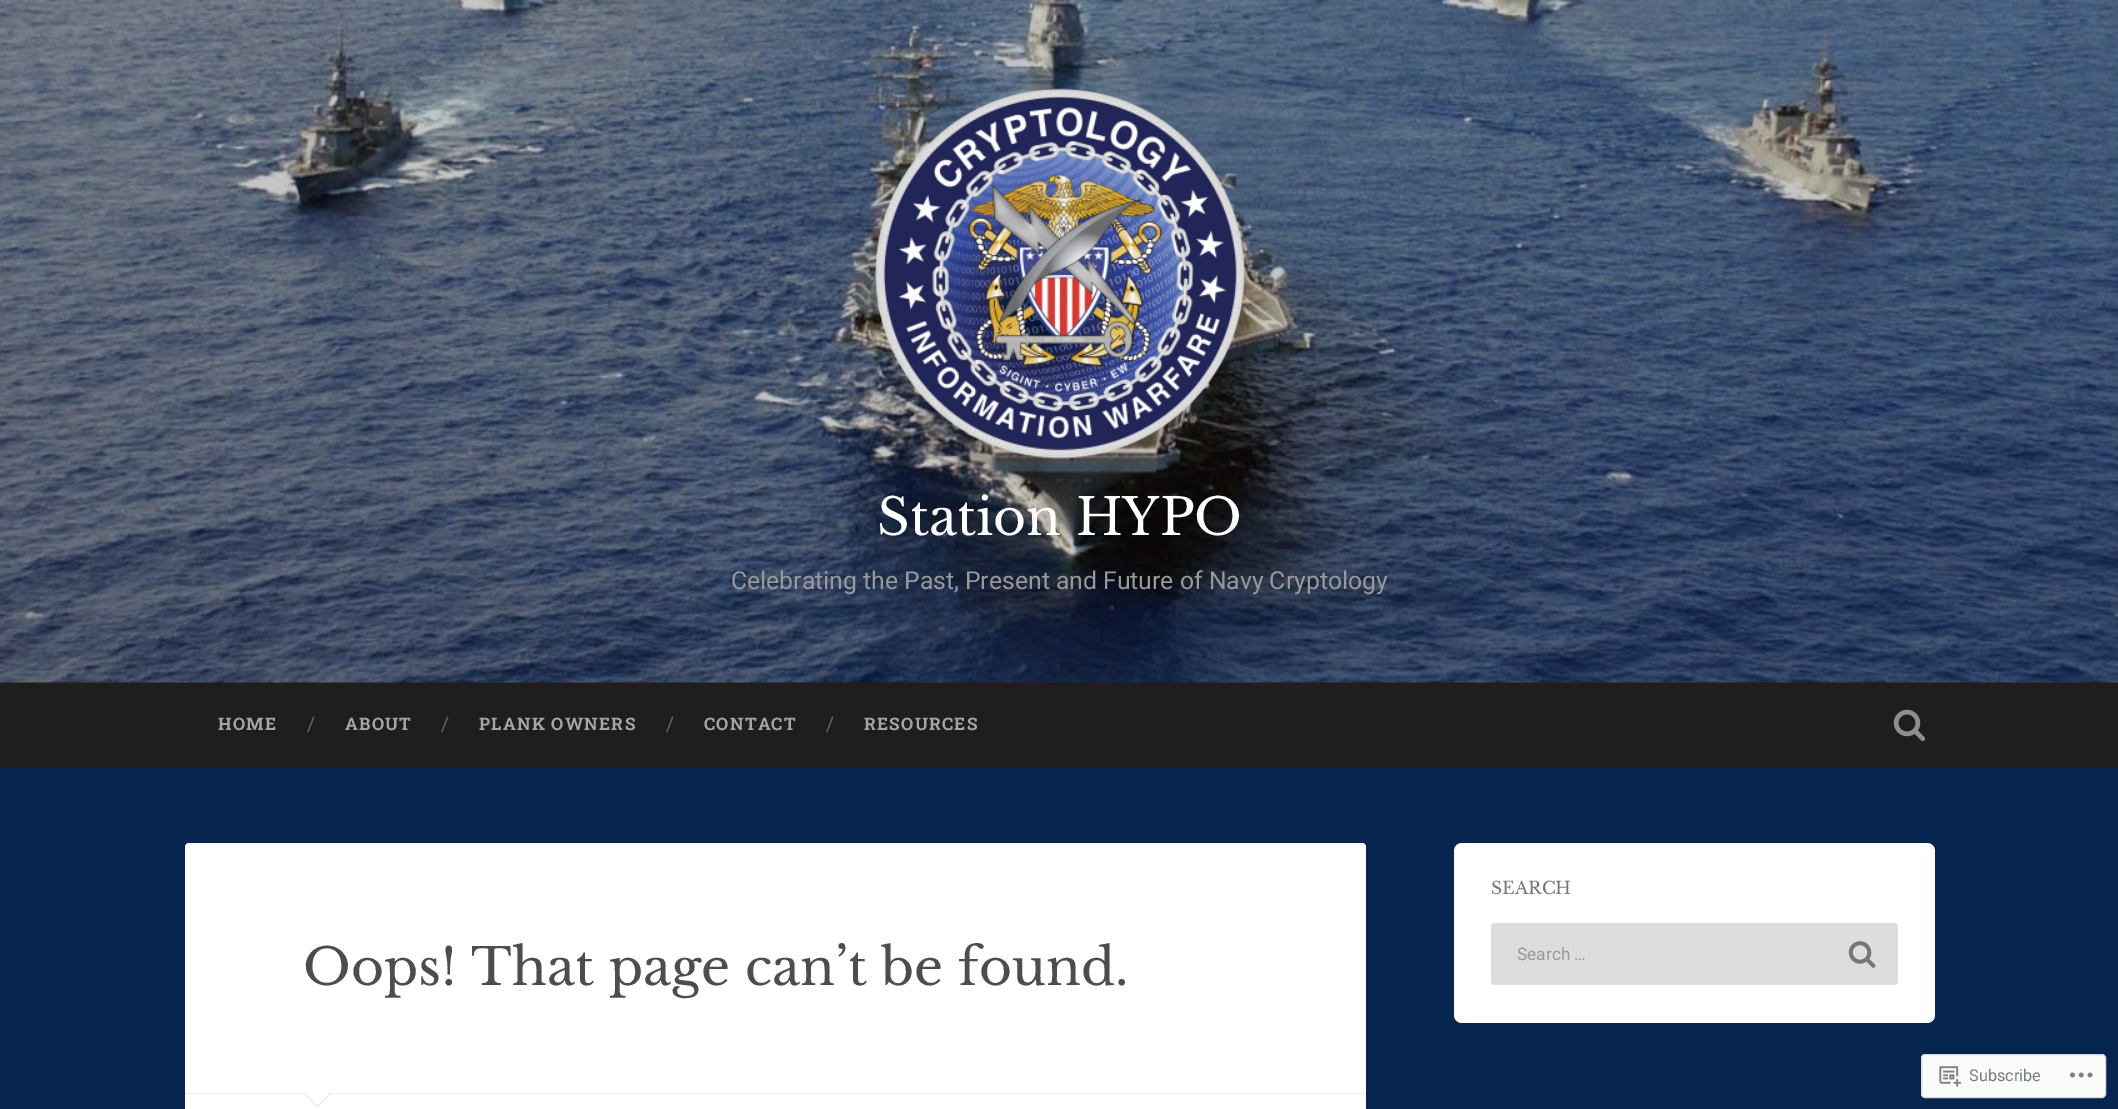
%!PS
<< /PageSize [2118 1109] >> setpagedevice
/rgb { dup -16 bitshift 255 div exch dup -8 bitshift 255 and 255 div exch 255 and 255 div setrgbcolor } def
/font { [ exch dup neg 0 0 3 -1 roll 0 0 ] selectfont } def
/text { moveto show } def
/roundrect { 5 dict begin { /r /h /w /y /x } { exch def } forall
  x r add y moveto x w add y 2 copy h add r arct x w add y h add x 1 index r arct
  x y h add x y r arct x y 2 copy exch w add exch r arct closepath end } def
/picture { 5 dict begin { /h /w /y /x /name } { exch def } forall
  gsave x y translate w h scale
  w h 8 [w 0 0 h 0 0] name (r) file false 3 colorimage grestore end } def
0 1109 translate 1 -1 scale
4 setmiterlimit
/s1 { /LibreBaskerville-Regular 50.6 font 16#FFFFFF rgb } def
/s2 { /Roboto-Regular 24.75 font 16#999999 rgb } def
/s3 { /RobotoSlab-Regular 20 font 16#626261 rgb } def
/s4 { /LibreBaskerville-Regular 17.25 font 16#767676 rgb } def
/s5 { /Roboto-Regular 17.25 font 16#999999 rgb } def
/s6 { /LibreBaskerville-Regular 50.6 font 16#4E4D4A rgb } def
/s7 { /Roboto-Regular 16.25 font 16#767A81 rgb } def
16#06254F rgb
0 0 2118 1109 rectfill
16#1F1E1D rgb
0 682 2118 86 rectfill
(pic1.raw) 0 0 2118 683 picture
(pic2.raw) 874 88 372 371 picture
s1
(Station HYPO) 877 535 text
s2
(Celebrating the Past, Present and Future of Navy Cryptology) 731 589 text
/RobotoSlab-Bold 17.25 font
16#A5A5A5 rgb
218 730 moveto 1.25 0 (HOME) ashow
s3
(/) 307 731 text
/RobotoSlab-Bold 17.25 font
16#A5A5A5 rgb
345 730 moveto 1.25 0 (ABOUT) ashow
s3
(/) 441 731 text
/RobotoSlab-Bold 17.25 font
16#A5A5A5 rgb
479 730 moveto 1.25 0 (PLANK OWNERS) ashow
s3
(/) 666 731 text
/RobotoSlab-Bold 17.25 font
16#A5A5A5 rgb
704 730 moveto 1.25 0 (CONTACT) ashow
s3
(/) 826 731 text
/RobotoSlab-Bold 17.25 font
16#A5A5A5 rgb
864 730 moveto 1.25 0 (RESOURCES) ashow
(pic3.raw) 1893 709 32 32 picture
16#FFFFFF rgb
1454 843 481 180 8 roundrect fill
s4
(SEARCH) 1491 894 text
16#DDDDDD rgb
1491 923 407 62 4 roundrect fill
s5
(Search …) 1517 960 text
(pic4.raw) 1848 941 28 27 picture
16#FFFFFF rgb
185 843 1181 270 4 roundrect fill
16#EEEEEE rgb
185 1093 1181 1 rectfill
s6
(Oops! That page can’t be found.) 303 985 text
16#EEEEEE rgb
302.5 1092.5 moveto 332.5 1092.5 lineto 317.5 1107.5 lineto closepath fill
16#FFFFFF rgb
304 1091 moveto 331 1091 lineto 317.5 1105 lineto closepath fill
16#FAFBFB rgb
1921.5 1054.5 184 43 3.5 roundrect gsave fill grestore
16#D8D8DB rgb
stroke
(pic5.raw) 1939 1066 22 21 picture
s7
(Subscribe) 1969 1081 text
(pic6.raw) 2070 1072 23 6 picture
showpage
